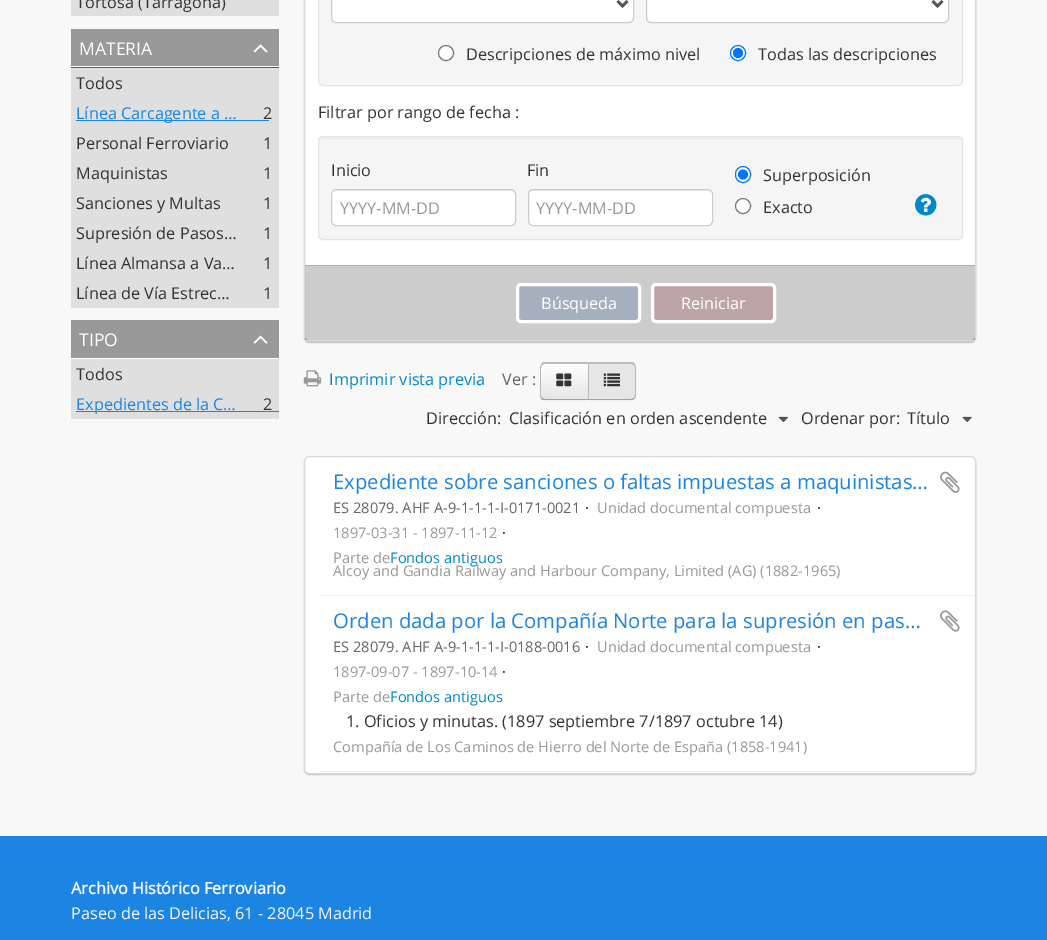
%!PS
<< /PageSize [1047 940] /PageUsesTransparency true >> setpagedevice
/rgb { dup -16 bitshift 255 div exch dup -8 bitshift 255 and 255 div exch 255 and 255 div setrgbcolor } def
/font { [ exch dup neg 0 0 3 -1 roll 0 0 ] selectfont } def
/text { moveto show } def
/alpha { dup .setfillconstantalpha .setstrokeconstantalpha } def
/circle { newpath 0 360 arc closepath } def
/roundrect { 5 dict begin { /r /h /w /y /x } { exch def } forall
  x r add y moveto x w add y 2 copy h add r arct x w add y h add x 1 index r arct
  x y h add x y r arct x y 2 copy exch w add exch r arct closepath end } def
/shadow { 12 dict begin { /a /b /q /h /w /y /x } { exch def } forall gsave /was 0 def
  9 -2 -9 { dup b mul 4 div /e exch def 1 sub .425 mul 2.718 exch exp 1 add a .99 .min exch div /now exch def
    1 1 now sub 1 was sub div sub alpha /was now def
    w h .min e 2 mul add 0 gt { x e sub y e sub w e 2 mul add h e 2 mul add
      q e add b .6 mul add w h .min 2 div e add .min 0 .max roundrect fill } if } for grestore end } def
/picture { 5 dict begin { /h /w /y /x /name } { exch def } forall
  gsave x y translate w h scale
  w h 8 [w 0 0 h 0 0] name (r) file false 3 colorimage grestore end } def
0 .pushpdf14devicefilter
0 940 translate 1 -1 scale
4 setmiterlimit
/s1 { /OpenSans-Regular 16.25 font 16#333333 rgb } def
/s2 { /OpenSans-Regular 17.5 font 16#FFFFFF rgb } def
/s3 { /OpenSans-Regular 16.25 font 16#1C84E3 rgb } def
/s4 { /OpenSans-Regular 16.25 font 16#999999 rgb } def
/s5 { /OpenSans-Regular 16.25 font 16#FFFFFF rgb } def
/s6 { /OpenSans-Regular 16.25 font 16#0088CC rgb } def
/s7 { /OpenSans-Regular 16.25 font 16#666666 rgb } def
/s8 { /OpenSans-Regular 20.3 font 16#1C84E3 rgb } def
/s9 { /OpenSans-Regular 14.6 font 16#666666 rgb } def
/s10 { /OpenSans-Regular 14.6 font 16#000000 rgb } def
/s11 { /OpenSans-Regular 14.6 font 16#999999 rgb } def
/s12 { /OpenSans-Regular 14.6 font 16#0088CC rgb } def
/s13 { /OpenSans-Bold 16.25 font 16#F5F5F5 rgb } def
/s14 { /OpenSans-Regular 16.25 font 16#F5F5F5 rgb } def
16#F8F8F8 rgb
0 0 1047 940 rectfill
16#DFDFDF rgb
71 0 208 16 rectfill
s1
(Tortosa \(Tarragona\)) 76 8 text
gsave 71 67 moveto 279 67 lineto 279 68 lineto 71 68 lineto closepath clip newpath
<< /ShadingType 2 /ColorSpace /DeviceRGB /Coords [175 66 175 104] /Extend [true true] /Function << /FunctionType 2 /Domain [0 1] /C0 [0.353 0.353 0.353] /C1 [0.478 0.478 0.478] /N 1 >> >> shfill grestore
16#FFFFFF rgb
71 66 208 1 rectfill
16#999999 rgb
71 29 208 37 rectfill
s2
(MATERIA) 79 55 text
(pic1.raw) 253 44 15 9 picture
16#DFDFDF rgb
71 68 208 240 rectfill
s1
(Todos) 76 89 text
16#1C84E3 rgb
76 120 193 1 rectfill
(Línea Carcagente a …) 76 119 text
s1
(2) 263 119 text
(Personal Ferroviario) 76 149 text
(1) 263 149 text
(Maquinistas) 76 179 text
(1) 263 179 text
(Sanciones y Multas) 76 209 text
(1) 263 209 text
(Supresión de Pasos…) 76 239 text
(1) 263 239 text
(Línea Almansa a Va…) 76 269 text
(1) 263 269 text
(Línea de Vía Estrec…) 76 299 text
(1) 263 299 text
16#FFFFFF rgb
71 358 208 1 rectfill
16#999999 rgb
71 320 208 38 rectfill
s2
(TIPO) 79 346 text
(pic2.raw) 253 335 15 9 picture
16#DFDFDF rgb
71 359 208 60 rectfill
s1
(Todos) 76 380 text
16#1C84E3 rgb
76 411 203 1 rectfill
(Expedientes de la C…) 76 410 text
s1
(2) 263 410 text
16#000000 rgb
304 -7 672 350 5 0.5 0.2 shadow
16#FFFFFF rgb
304.5 -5.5 671 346 4.5 roundrect gsave fill grestore
16#D9D9D9 rgb
stroke
16#F5F5F5 rgb
318.5 -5.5 644 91 4.5 roundrect gsave fill grestore
16#E3E3E3 rgb
stroke
16#FFFFFF rgb
331.5 -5.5 302 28 4.5 roundrect gsave fill grestore
16#CCCCCC rgb
stroke
16#555555 rgb
2.5 setlinewidth
617.5 1 moveto 622.5 6 lineto 627.5 1 lineto stroke
16#FFFFFF rgb
646.5 -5.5 302 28 4.5 roundrect gsave fill grestore
16#CCCCCC rgb
1 setlinewidth
stroke
16#555555 rgb
2.5 setlinewidth
932.5 1 moveto 937.5 6 lineto 942.5 1 lineto stroke
16#FFFFFF rgb
446 53 7.5 circle gsave fill grestore
16#767676 rgb
1 setlinewidth
stroke
s1
(Descripciones de máximo nivel) 466 60 text
16#FFFFFF rgb
738 53 7.5 circle gsave fill grestore
16#0075FF rgb
stroke
738 53 5 circle fill
s1
(Todas las descripciones) 758 60 text
(Filtrar por rango de fecha :) 318 118 text
16#F5F5F5 rgb
318 136 645 104 5 roundrect fill
16#E9E9E9 rgb
322 139 moveto 958 139 lineto 960 140 lineto 959 138 lineto 323 138 lineto 321 139 lineto 320 140 lineto closepath fill
16#E3E3E3 rgb
318.5 136.5 644 103 4.5 roundrect stroke
s1
(Inicio) 331 176 text
16#FFFFFF rgb
331 189 185 37 5 roundrect fill
16#ECECEC rgb
336 191 moveto 511 191 lineto 513 191 515 193 515 195 curveto 515 194 lineto 515 192 513 190 511 190 curveto 337 190 lineto 336 190 334 191 334 192 curveto closepath fill
16#CCCCCC rgb
331.5 189.5 184 36 4.5 roundrect stroke
s4
(YYYY-MM-DD) 340 214 text
s1
(Fin) 527 176 text
16#FFFFFF rgb
528 189 185 37 5 roundrect fill
16#ECECEC rgb
532 191 moveto 708 191 lineto 710 191 711 193 711 195 curveto 711 194 lineto 711 192 709 190 707 190 curveto 533 190 lineto 531 190 529 192 529 194 curveto 529 195 lineto 529 193 530 191 532 191 curveto closepath fill
16#CCCCCC rgb
528.5 189.5 184 36 4.5 roundrect stroke
s4
(YYYY-MM-DD) 536 214 text
16#FFFFFF rgb
735.5 166.5 15 16 7.5 roundrect gsave fill grestore
16#0075FF rgb
stroke
743 174.5 5 circle fill
s1
(Superposición) 763 181 text
16#FFFFFF rgb
743 206 7.5 circle gsave fill grestore
16#767676 rgb
stroke
s1
(Exacto) 763 213 text
(pic3.raw) 915 194 22 22 picture
0.2 alpha
16#000000 rgb
305 266 670 74 rectfill
1 alpha
16#ADADAD rgb
305 265 670 1 rectfill
16#A5AFBE rgb
517.5 284.5 122 37 3.5 roundrect gsave fill grestore
16#FFFFFF rgb
3 setlinewidth
stroke
(Búsqueda) 541 309 text
16#BEA5A5 rgb
652.5 284.5 122 37 3.5 roundrect gsave fill grestore
16#FFFFFF rgb
stroke
(Reiniciar) 681 309 text
(pic4.raw) 303 370 19 17 picture
s6
(Imprimir vista previa) 329 385 text
s7
(Ver :) 502 385 text
16#000000 rgb
540 364 49 37 5 1 0.05 shadow
16#F5F5F5 rgb
545 363 moveto 589 363 lineto 589 400 lineto 545 400 lineto 542 400 540 398 540 395 curveto 540 368 lineto 540 365 542 363 545 363 curveto closepath fill
gsave
545 363 moveto 589 363 lineto 589 400 lineto 545 400 lineto 542 400 540 398 540 395 curveto 540 368 lineto 540 365 542 363 545 363 curveto closepath clip newpath
gsave 540 364 moveto 588 364 lineto 588 399 lineto 540 399 lineto closepath clip newpath
<< /ShadingType 2 /ColorSpace /DeviceRGB /Coords [564 364 564 399] /Extend [true true] /Function << /FunctionType 2 /Domain [0 1] /C0 [1 1 1] /C1 [0.902 0.902 0.902] /N 1 >> >> shfill grestore
grestore
16#BBBBBB rgb
545 364 moveto 542 365 lineto 541 364 lineto 543 362 lineto 589 362 lineto 587 364 lineto closepath fill
589 362.5 moveto 587 364 lineto 588 364 lineto 588 399 lineto 589 400 lineto closepath fill
16#A2A2A2 rgb
589 400 moveto 588 399 lineto 545 399 lineto 544 399 543 398 542 398 curveto 541 399 lineto 542 400 544 400 545 400 curveto closepath fill
16#BBBBBB rgb
540 368 moveto 540 395 lineto 540 396.5 540.5 398 541.5 398.5 curveto 542 398 lineto 541.5 397 541 396 541 395 curveto 541 368 lineto 541 366.5 541.5 365.5 542.5 365 curveto 541.5 364 lineto 540.5 365 540 366.5 540 368 curveto closepath fill
(pic5.raw) 556 373 16 14 picture
16#000000 rgb
588 364 48 37 5 1 0.05 shadow
16#E6E6E6 rgb
588 363 moveto 631 363 lineto 634 363 636 365 636 368 curveto 636 395 lineto 636 398 634 400 631 400 curveto 588 400 lineto closepath fill
16#BBBBBB rgb
589 364 moveto 588 362 lineto 633 362 lineto 635 364 lineto 634 365 lineto 631 364 lineto closepath fill
634.5 364 moveto 635.5 365 636 366.5 636 368 curveto 636 395 lineto 636 396.5 635.5 397.5 634.5 398.5 curveto 634 397.5 lineto 634.5 397 635 396 635 395 curveto 635 368 lineto 635 366.5 634.5 365.5 634 365 curveto closepath fill
16#A2A2A2 rgb
588 400 moveto 631 400 lineto 633 400 634 399 635 398 curveto 634 398 lineto 633 398 632 399 631 399 curveto 589 399 lineto 589 398 lineto closepath fill
16#BBBBBB rgb
589 364 moveto 589 398.5 lineto 588 399.5 lineto 588 363 lineto closepath fill
(pic6.raw) 603 373 17 14 picture
s1
(Dirección:) 426 424 text
(Clasificación en orden ascendente) 509 424 text
(pic7.raw) 778 416 10 6 picture
(Ordenar por:) 801 424 text
(Título) 907 424 text
(pic8.raw) 962 416 10 6 picture
16#000000 rgb
304 458 672 317 5 0.5 0.2 shadow
16#FFFFFF rgb
304.5 456.5 671 317 4.5 roundrect gsave fill grestore
16#D9D9D9 rgb
1 setlinewidth
stroke
16#EEEEEE rgb
320 595 655 1 rectfill
s8
(Expediente sobre sanciones o faltas impuestas a maquinistas…) 333 489 text
(pic9.raw) 940 471 20 22 picture
s9
(ES 28079. AHF A-9-1-1-1-I-0171-0021) 333 513 text
s10
(·) 585 513 text
s11
(Unidad documental compuesta) 597 513 text
s10
(·) 817 513 text
s11
(1897-03-31 - 1897-11-12) 333 538 text
s10
(·) 502 538 text
s11
(Parte de) 333 563 text
s12
(Fondos antiguos) 390 563 text
s11
(Alcoy and Gandia Railway and Harbour Company, Limited \(AG\) \(1882-1965\)) 333 576 text
16#EEEEEE rgb
320 771 655 1 rectfill
s8
(Orden dada por la Compañía Norte para la supresión en pas…) 333 628 text
(pic10.raw) 940 610 20 22 picture
s9
(ES 28079. AHF A-9-1-1-1-I-0188-0016) 333 652 text
s10
(·) 585 652 text
s11
(Unidad documental compuesta) 597 652 text
s10
(·) 817 652 text
s11
(1897-09-07 - 1897-10-14) 333 677 text
s10
(·) 502 677 text
s11
(Parte de) 333 702 text
s12
(Fondos antiguos) 390 702 text
s1
(1. Oficios y minutas. \(1897 septiembre 7/1897 octubre 14\)) 346 727 text
s11
(Compañía de Los Caminos de Hierro del Norte de España \(1858-1941\)) 333 752 text
16#1C84E3 rgb
0 836 1047 104 rectfill
s13
(Archivo Histórico Ferroviario) 71 894 text
s14
(Paseo de las Delicias, 61 - 28045 Madrid) 71 919 text
.poppdf14devicefilter showpage
